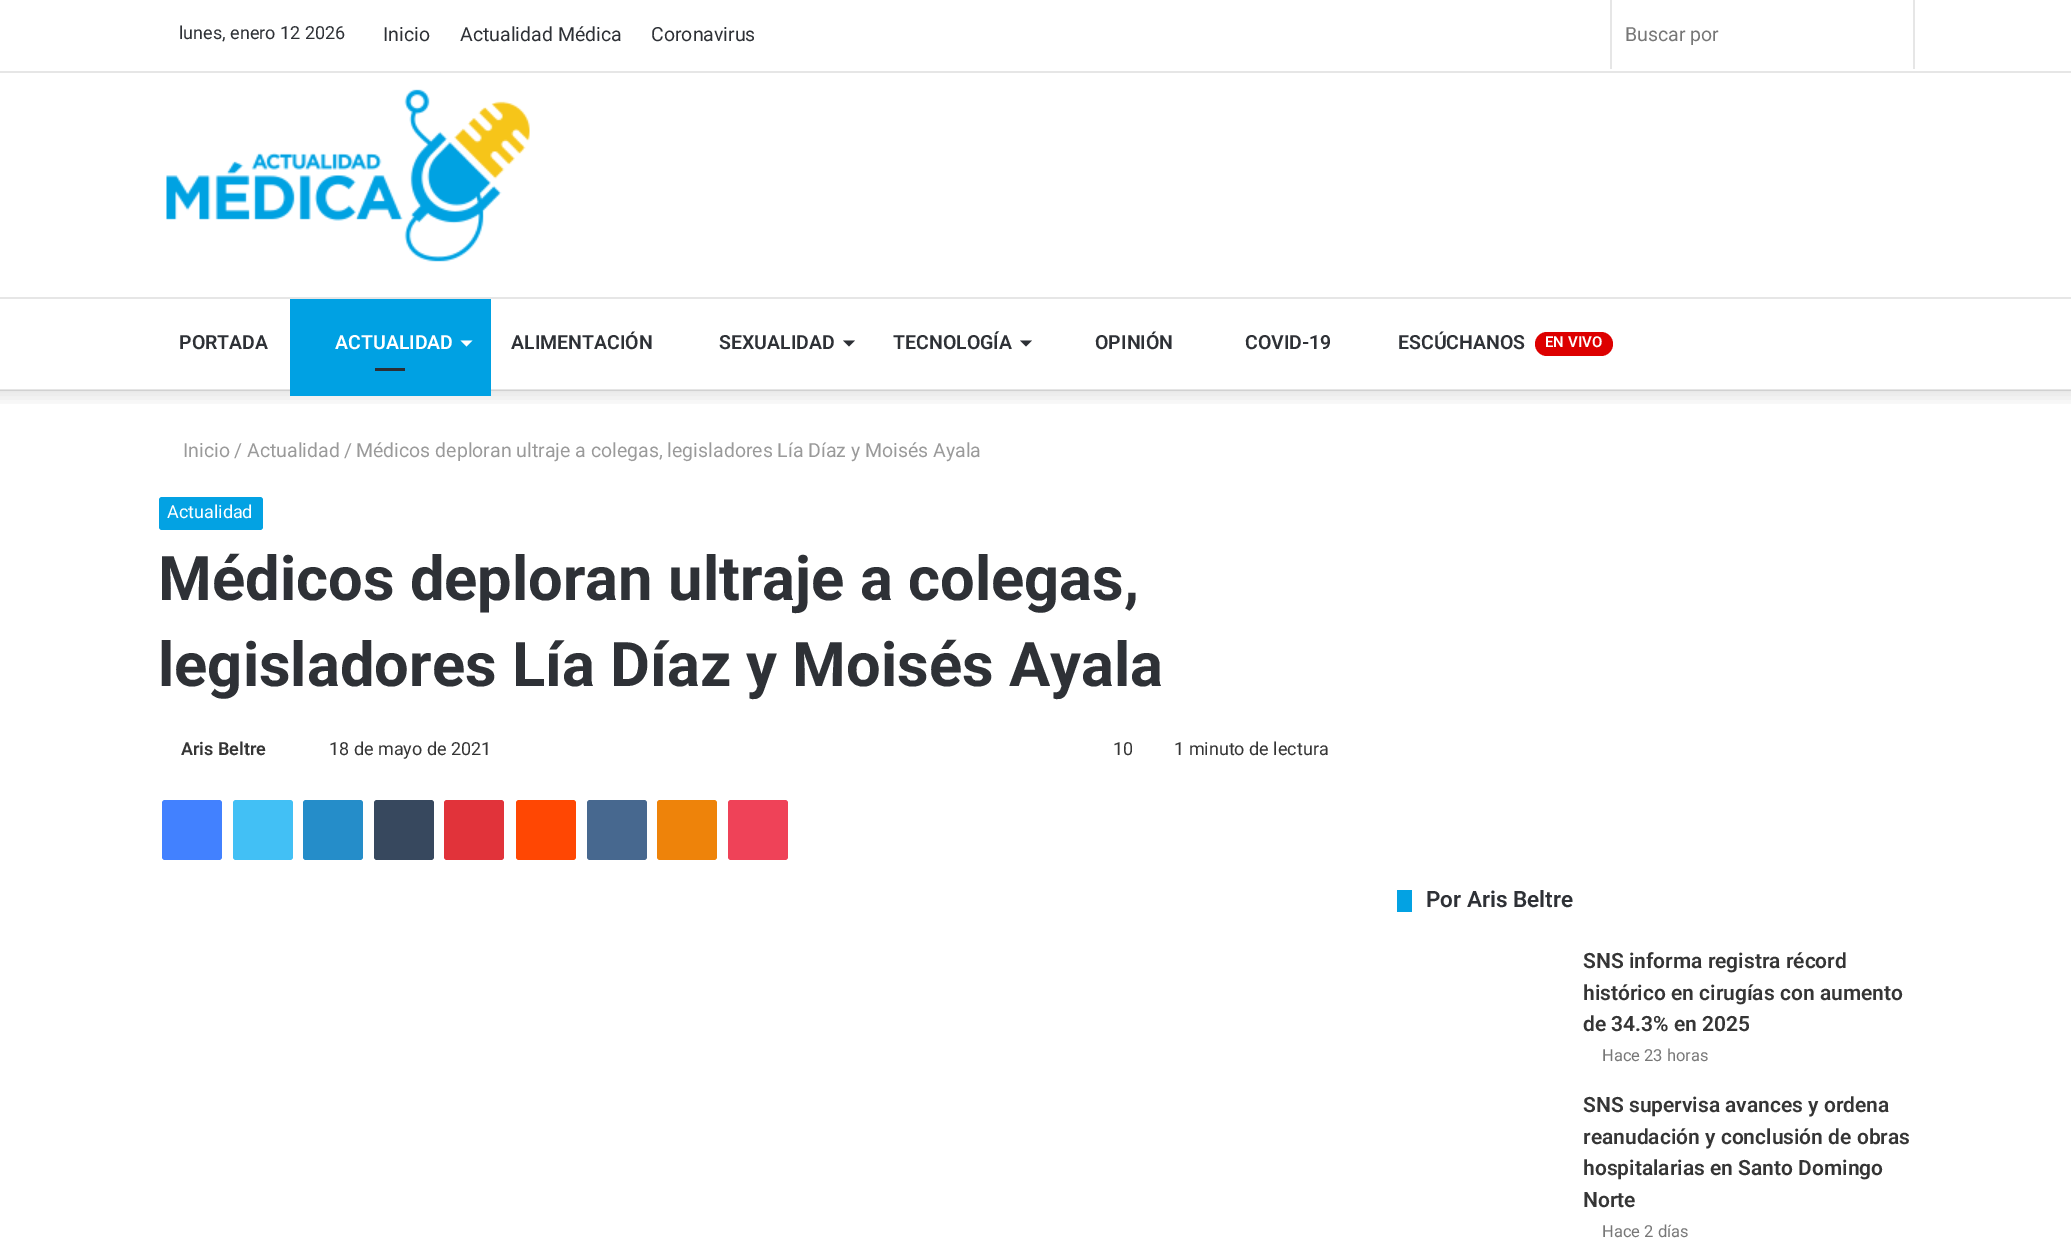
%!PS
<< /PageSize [2071 1250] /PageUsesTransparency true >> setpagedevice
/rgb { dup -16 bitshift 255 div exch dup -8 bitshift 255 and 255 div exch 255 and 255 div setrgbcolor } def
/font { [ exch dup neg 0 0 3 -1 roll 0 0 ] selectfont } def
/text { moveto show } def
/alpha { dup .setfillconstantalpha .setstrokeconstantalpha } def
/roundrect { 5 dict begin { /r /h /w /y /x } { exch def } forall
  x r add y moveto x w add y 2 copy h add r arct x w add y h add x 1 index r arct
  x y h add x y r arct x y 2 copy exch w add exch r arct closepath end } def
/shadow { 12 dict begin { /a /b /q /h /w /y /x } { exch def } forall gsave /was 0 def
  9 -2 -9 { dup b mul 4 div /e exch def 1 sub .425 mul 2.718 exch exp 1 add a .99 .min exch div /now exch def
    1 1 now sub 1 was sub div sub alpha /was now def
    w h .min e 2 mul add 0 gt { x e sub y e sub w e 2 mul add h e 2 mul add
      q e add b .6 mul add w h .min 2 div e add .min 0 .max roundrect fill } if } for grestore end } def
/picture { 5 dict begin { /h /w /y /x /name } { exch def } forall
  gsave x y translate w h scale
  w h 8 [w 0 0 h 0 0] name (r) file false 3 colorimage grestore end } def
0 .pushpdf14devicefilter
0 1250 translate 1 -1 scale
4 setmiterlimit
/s1 { /Roboto-Regular 18 font 16#2E3136 rgb } def
/s2 { /Roboto-Regular 19.5 font 16#2E3136 rgb } def
/s3 { /Roboto-Regular 19.5 font 16#777777 rgb } def
/s4 { /Roboto-SemiBold 19.5 font 16#2E3136 rgb } def
/s5 { /Roboto-SemiBold 19.5 font 16#FFFFFF rgb } def
/s6 { /Roboto-SemiBold 15 font 16#FFFFFF rgb } def
/s7 { /Roboto-Regular 19.5 font 16#9A9A9A rgb } def
/s8 { /Roboto-Regular 18 font 16#FFFFFF rgb } def
/s9 { /Roboto-Bold 61.5 font 16#2E3136 rgb } def
/s10 { /Roboto-SemiBold 18 font 16#353535 rgb } def
/s11 { /Roboto-Regular 18 font 16#353535 rgb } def
/s12 { /Roboto-SemiBold 22.5 font 16#2E3136 rgb } def
/s13 { /Roboto-SemiBold 21 font 16#353535 rgb } def
/s14 { /Roboto-Regular 16.5 font 16#777777 rgb } def
16#FFFFFF rgb
0 0 2071 1250 rectfill
gsave
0 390 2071 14 rectclip
16#000000 rgb
-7 -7 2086 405 0 7.5 0.1 shadow
grestore
16#E6E6E6 rgb
0 71 2071 2 rectfill
s1
(lunes, enero 12 2026) 179 39 text
s2
(Inicio) 383 41 text
(Actualidad Médica) 460 41 text
(Coronavirus) 651 41 text
16#E6E6E6 rgb
1913 0 2 69 rectfill
1610 0 2 69 rectfill
s3
(Buscar por) 1625 41 text
(pic1.raw) 166 89 364 173 picture
16#E6E6E6 rgb
0 297 2071 2 rectfill
0.1 alpha
16#000000 rgb
0 389 2071 2 rectfill
1 alpha
s4
(PORTADA) 179 349 text
16#00A1E3 rgb
290 299 201 97 rectfill
s5
(ACTUALIDAD) 335 349 text
460.5 340.5 moveto 472.5 340.5 lineto 466.5 346.5 lineto closepath fill
16#2C2F34 rgb
375 368 30 3 rectfill
s4
(ALIMENTACIÓN) 511 349 text
(SEXUALIDAD) 719 349 text
16#2C2F34 rgb
843 340.5 moveto 855 340.5 lineto 849 346.5 lineto closepath fill
s4
(TECNOLOGÍA) 893 349 text
16#2C2F34 rgb
1020 340.5 moveto 1032 340.5 lineto 1026 346.5 lineto closepath fill
s4
(OPINIÓN) 1095 349 text
(COVID-19) 1245 349 text
(ESCÚCHANOS) 1398 349 text
16#DD0000 rgb
1535 332 78 24 12 roundrect fill
s6
(EN VIVO) 1545 347 text
s7
(Inicio) 183 457 text
(/) 234 457 text
(Actualidad) 247 457 text
(/) 344 457 text
(Médicos deploran ultraje a colegas, legisladores Lía Díaz y Moisés Ayala) 356 457 text
16#03A2E3 rgb
159 497 104 33 3 roundrect fill
s8
(Actualidad) 167 518 text
s9
(Médicos deploran ultraje a colegas,) 158 600 text
(legisladores Lía Díaz y Moisés Ayala) 158 686 text
s10
(Aris Beltre) 181 755 text
s11
(18 de mayo de 2021) 329 755 text
(10) 1113 755 text
(1 minuto de lectura) 1174 755 text
16#4281FF rgb
162 800 60 60 3 roundrect fill
16#42C0F5 rgb
233 800 60 60 3 roundrect fill
16#258DC9 rgb
303 800 60 60 3 roundrect fill
16#37485E rgb
374 800 60 60 3 roundrect fill
16#E1333A rgb
444 800 60 60 3 roundrect fill
16#FF4703 rgb
516 800 60 60 3 roundrect fill
16#47688F rgb
587 800 60 60 3 roundrect fill
16#EE830A rgb
657 800 60 60 3 roundrect fill
16#EF4258 rgb
728 800 60 60 3 roundrect fill
16#03A2E3 rgb
1397 890 15 22 rectfill
s12
(Por Aris Beltre) 1426 907 text
s13
(SNS informa registra récord) 1583 968 text
(histórico en cirugías con aumento) 1583 1000 text
(de 34.3% en 2025) 1583 1031 text
s14
(Hace 23 horas) 1602 1061 text
s13
(SNS supervisa avances y ordena) 1583 1112 text
(reanudación y conclusión de obras) 1583 1144 text
(hospitalarias en Santo Domingo) 1583 1175 text
(Norte) 1583 1207 text
s14
(Hace 2 días) 1602 1237 text
.poppdf14devicefilter showpage
